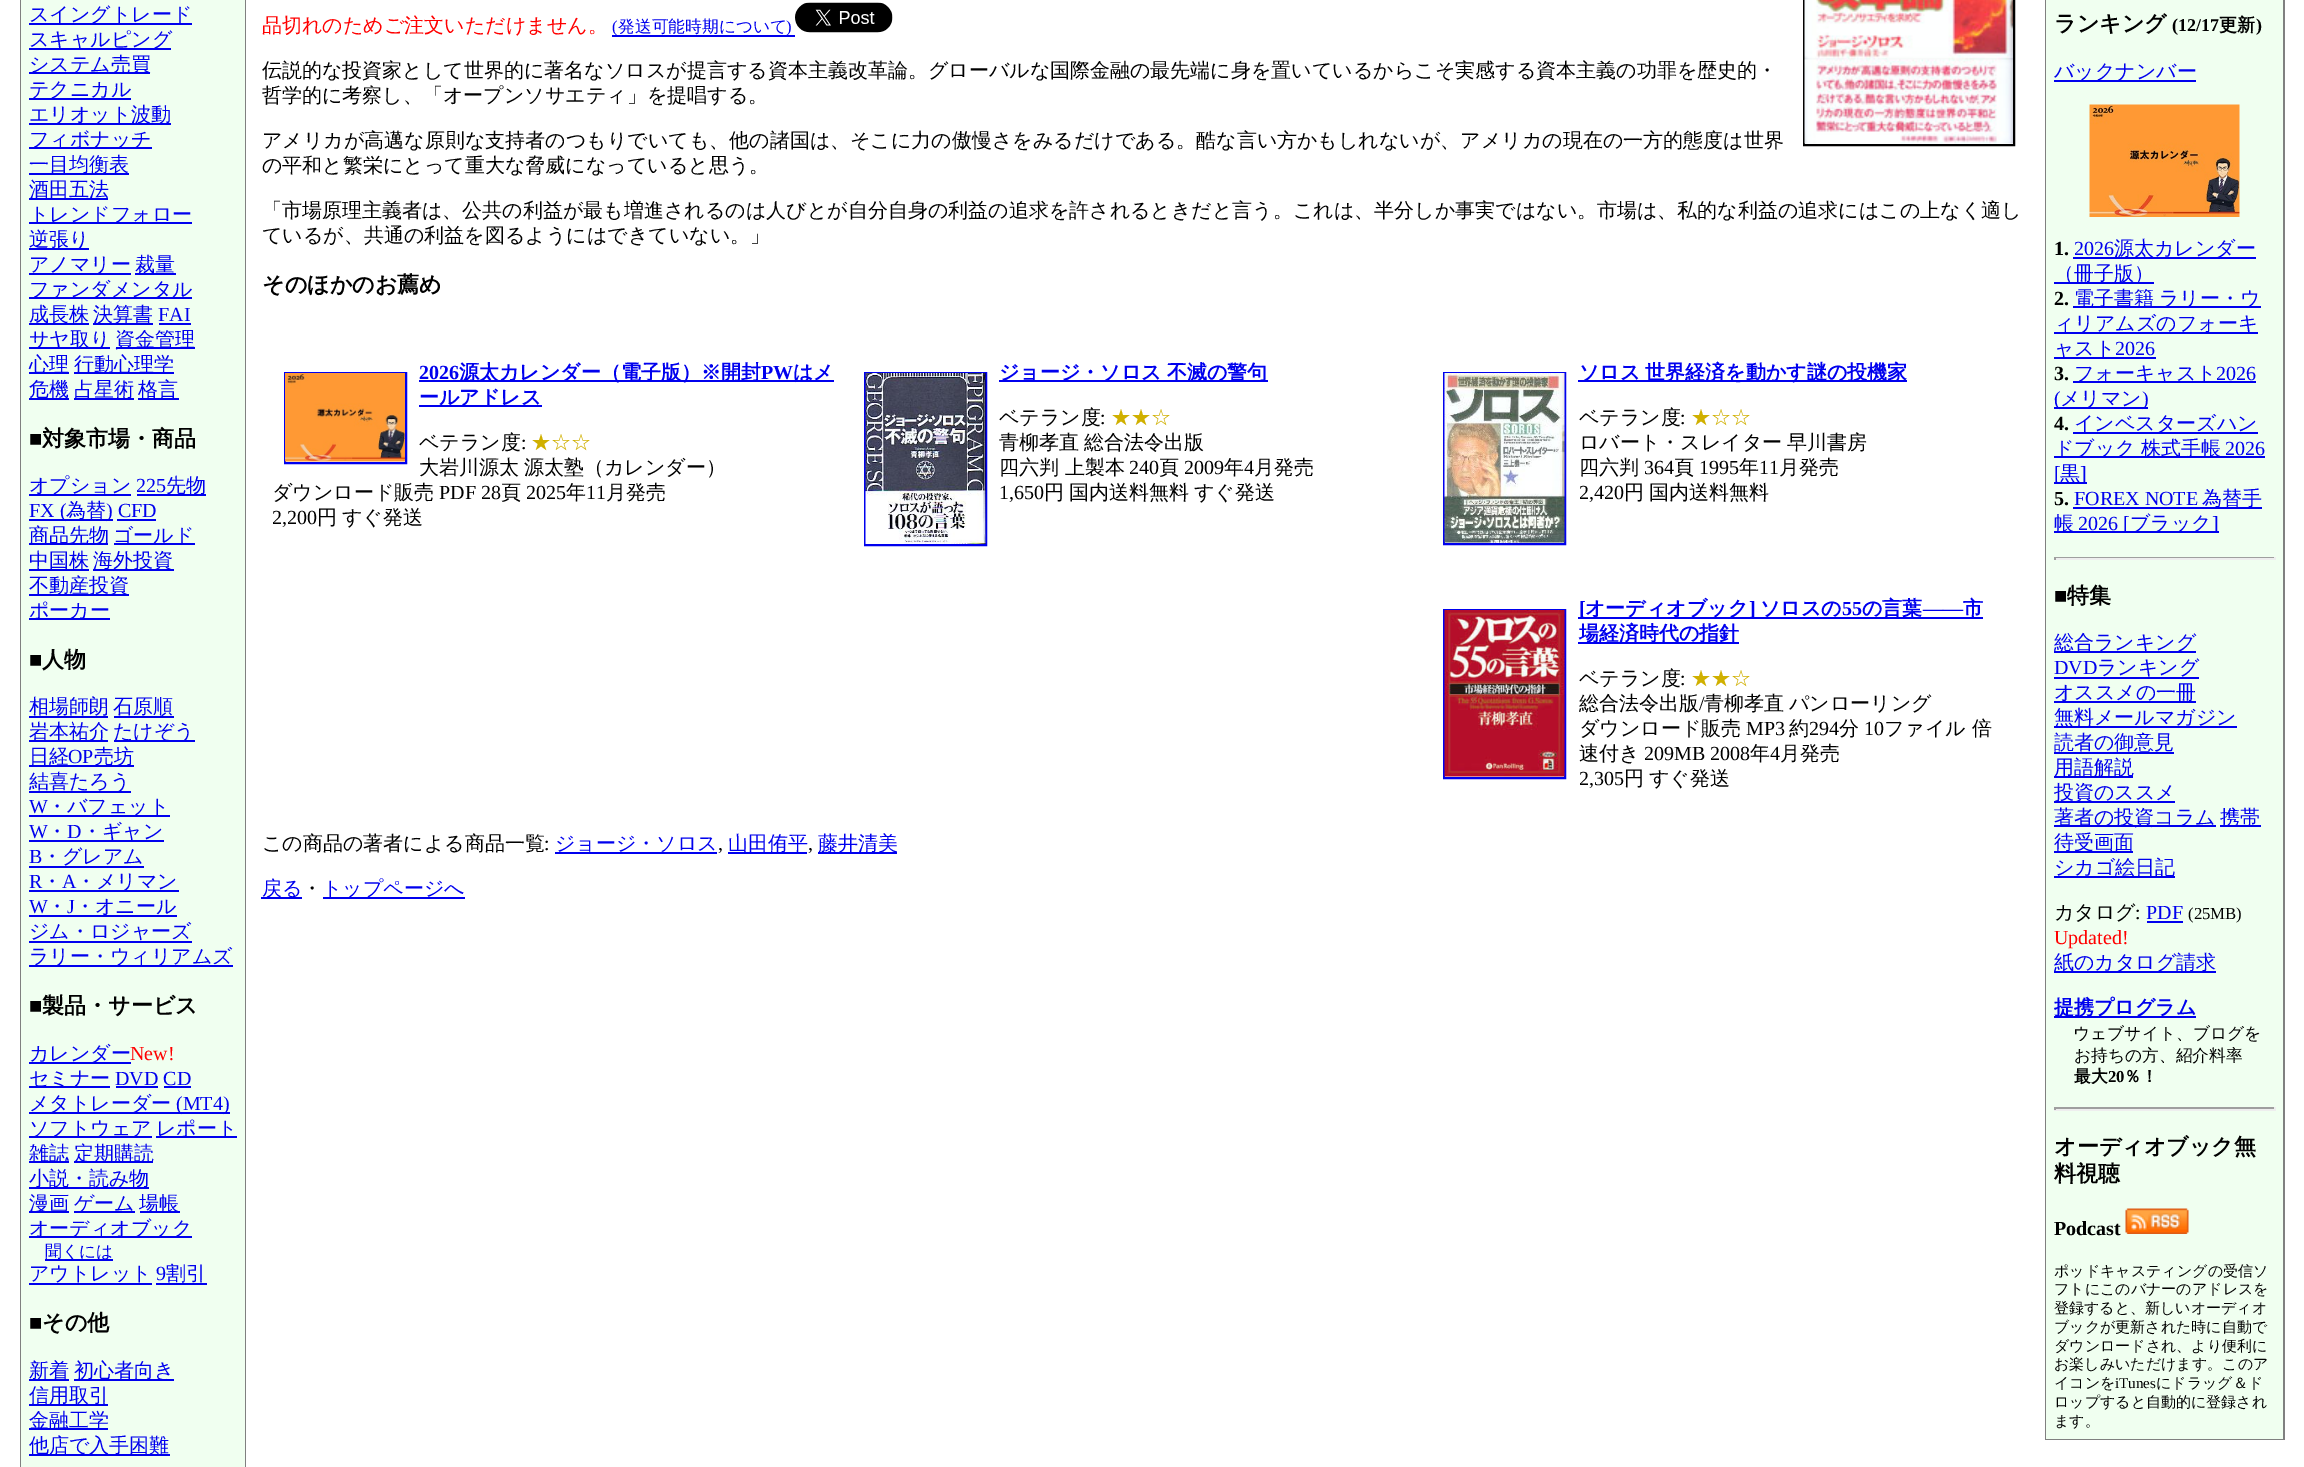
%!PS
<< /PageSize [2304 1467] >> setpagedevice
/rgb { dup -16 bitshift 255 div exch dup -8 bitshift 255 and 255 div exch 255 and 255 div setrgbcolor } def
/font { [ exch dup neg 0 0 3 -1 roll 0 0 ] selectfont } def
/text { moveto show } def
/picture { 5 dict begin { /h /w /y /x /name } { exch def } forall
  gsave x y translate w h scale
  w h 8 [w 0 0 h 0 0] name (r) file false 3 colorimage grestore end } def
0 1467 translate 1 -1 scale
4 setmiterlimit
/s1 { /WenQuanYiZenHei-Medium 20 font 16#0000EE rgb } def
/s2 { /LiberationSerif-Regular 20 font 16#0000EE rgb } def
/s3 { /LiberationSerif-Bold 22 font 16#000000 rgb } def
/s4 { /WenQuanYiZenHei-Bold 22 font 16#000000 rgb } def
/s5 { /LiberationSerif-Regular 20 font 16#FF0000 rgb } def
/s6 { /WenQuanYiZenHei-Medium 16.75 font 16#0000EE rgb } def
/s7 { /WenQuanYiZenHei-Medium 20 font 16#FF0000 rgb } def
/s8 { /LiberationSerif-Regular 16.75 font 16#0000EE rgb } def
/s9 { /WenQuanYiZenHei-Medium 20 font 16#000000 rgb } def
/s10 { /LiberationSerif-Bold 20 font 16#0000EE rgb } def
/s11 { /WenQuanYiZenHei-Bold 20 font 16#0000EE rgb } def
/s12 { /LiberationSerif-Regular 20 font 16#000000 rgb } def
/s13 { /WenQuanYiZenHei-Medium 20 font 16#D0B000 rgb } def
/s14 { /LiberationSerif-Bold 18 font 16#000000 rgb } def
/s15 { /WenQuanYiZenHei-Bold 18 font 16#000000 rgb } def
/s16 { /LiberationSerif-Bold 20 font 16#000000 rgb } def
/s17 { /LiberationSerif-Regular 16.75 font 16#000000 rgb } def
/s18 { /WenQuanYiZenHei-Medium 16.75 font 16#000000 rgb } def
/s19 { /WenQuanYiZenHei-Bold 16.75 font 16#000000 rgb } def
/s20 { /LiberationSerif-Bold 16.75 font 16#000000 rgb } def
/s21 { /WenQuanYiZenHei-Medium 15 font 16#000000 rgb } def
/s22 { /LiberationSerif-Regular 15 font 16#000000 rgb } def
16#FFFFFF rgb
0 0 2304 1467 rectfill
16#808080 rgb
20 0 226 1467 rectfill
16#F0FFF0 rgb
21 0 224 1467 rectfill
16#0000EE rgb
29 23 163 2 rectfill
s1
(スイングトレード) 29 21 text
29 48 142 2 rectfill
(スキャルピング) 29 46 text
29 72 121 2 rectfill
(システム売買) 29 71 text
29 98 102 2 rectfill
(テクニカル) 29 96 text
29 123 142 2 rectfill
(エリオット波動) 29 121 text
29 147 123 2 rectfill
(フィボナッチ) 29 146 text
29 173 100 2 rectfill
(一目均衡表) 29 171 text
29 198 79 2 rectfill
(酒田五法) 29 196 text
29 222 163 2 rectfill
(トレンドフォロー) 29 221 text
29 248 60 2 rectfill
(逆張り) 29 246 text
29 273 102 2 rectfill
(アノマリー) 29 271 text
135 273 41 2 rectfill
(裁量) 135 271 text
29 297 163 2 rectfill
(ファンダメンタル) 29 296 text
29 323 60 2 rectfill
(成長株) 29 321 text
93 323 60 2 rectfill
(決算書) 93 321 text
s2
(FAI) 158 321 text
159 323 32 2 rectfill
29 347 81 2 rectfill
s1
(サヤ取り) 29 346 text
116 347 79 2 rectfill
(資金管理) 115 346 text
29 372 40 2 rectfill
(心理) 29 371 text
74 372 100 2 rectfill
(行動心理学) 74 371 text
29 398 40 2 rectfill
(危機) 29 396 text
74 398 60 2 rectfill
(占星術) 74 396 text
138 398 41 2 rectfill
(格言) 138 396 text
s3
(■) 29 446 text
s4
(対象市場・商品) 42 446 text
16#0000EE rgb
29 494 102 2 rectfill
s1
(オプション) 29 492 text
s2
(225) 136 492 text
137 494 69 2 rectfill
s1
(先物) 166 492 text
29 519 84 2 rectfill
s2
(FX \() 29 517 text
s1
(為替) 66 517 text
s2
(\) CFD) 106 517 text
117 519 39 2 rectfill
29 543 79 2 rectfill
s1
(商品先物) 29 542 text
114 543 81 2 rectfill
(ゴールド) 113 542 text
29 569 60 2 rectfill
(中国株) 29 567 text
93 569 81 2 rectfill
(海外投資) 93 567 text
29 594 100 2 rectfill
(不動産投資) 29 592 text
29 618 81 2 rectfill
(ポーカー) 29 617 text
s3
(■) 29 667 text
s4
(人物) 42 667 text
s1
(相場師朗) 29 713 text
29 716 79 2 rectfill
114 716 60 2 rectfill
(石原順) 113 713 text
29 740 79 2 rectfill
(岩本祐介) 29 738 text
114 740 81 2 rectfill
(たけぞう) 113 738 text
29 765 105 2 rectfill
(日経) 29 763 text
s2
(OP) 68 763 text
s1
(売坊) 94 763 text
29 791 102 2 rectfill
(結喜たろう) 29 788 text
s2
(W) 29 813 text
29 815 141 2 rectfill
s1
(・バフェット) 47 813 text
s2
(W) 29 838 text
29 840 135 2 rectfill
s1
(・) 47 838 text
s2
(D) 67 838 text
s1
(・ギャン) 82 838 text
s2
(B) 29 863 text
29 866 115 2 rectfill
s1
(・グレアム) 42 863 text
s2
(R) 29 888 text
s1
(・) 42 888 text
s2
(A) 62 888 text
29 890 150 2 rectfill
s1
(・メリマン) 76 888 text
s2
(W) 29 913 text
s1
(・) 47 913 text
s2
(J) 67 913 text
29 915 148 2 rectfill
s1
(・オニール) 75 913 text
(ジム・ロジャーズ) 29 938 text
29 941 163 2 rectfill
29 965 204 2 rectfill
(ラリー・ウィリアムズ) 29 963 text
s3
(■) 29 1013 text
s4
(製品・サービス) 42 1013 text
16#0000EE rgb
29 1062 102 2 rectfill
s1
(カレンダー) 29 1060 text
s5
(New!) 130 1060 text
16#0000EE rgb
29 1086 81 2 rectfill
s1
(セミナー) 29 1085 text
s2
(DVD CD) 115 1085 text
116 1086 42 2 rectfill
164 1086 27 2 rectfill
29 1112 201 2 rectfill
s1
(メタトレーダー) 29 1110 text
s2
(\(MT4\)) 176 1110 text
29 1136 123 2 rectfill
s1
(ソフトウェア) 29 1135 text
156 1136 81 2 rectfill
(レポート) 156 1135 text
29 1161 40 2 rectfill
(雑誌) 29 1160 text
74 1161 79 2 rectfill
(定期購読) 74 1160 text
29 1187 120 2 rectfill
(小説・読み物) 29 1185 text
29 1211 40 2 rectfill
(漫画) 29 1210 text
74 1211 61 2 rectfill
(ゲーム) 74 1210 text
140 1211 40 2 rectfill
(場帳) 139 1210 text
29 1236 163 2 rectfill
(オーディオブック) 29 1235 text
45 1259 68 2 rectfill
s6
(聞くには) 45 1257 text
s1
(アウトレット) 29 1280 text
29 1283 123 2 rectfill
s2
(9) 156 1280 text
156 1283 51 2 rectfill
s1
(割引) 166 1280 text
s3
(■) 29 1330 text
s4
(その他) 42 1330 text
16#0000EE rgb
29 1379 40 2 rectfill
s1
(新着) 29 1377 text
74 1379 100 2 rectfill
(初心者向き) 74 1377 text
29 1404 79 2 rectfill
(信用取引) 29 1402 text
29 1428 79 2 rectfill
(金融工学) 29 1427 text
29 1454 141 2 rectfill
(他店で入手困難) 29 1452 text
s7
(品切れのためご注文いただけません。) 262 32 text
16#0000EE rgb
612 35 183 2 rectfill
s8
(\() 612 32 text
s6
(発送可能時期について) 618 32 text
s8
(\)) 786 32 text
(pic1.raw) 795 2 98 31 picture
16#000000 rgb
2 setlinewidth
1804 -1 210 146 rectstroke
(pic2.raw) 1804 0 209 144 picture
s9
(伝説的な投資家として世界的に著名なソロスが提言する資本主義改革論。グローバルな国際金融の最先端に身を置いているからこそ実感する資本主義の功罪を歴史的・) 262 77 text
(哲学的に考察し、「オープンソサエティ」を提唱する。) 262 102 text
(アメリカが高邁な原則な支持者のつもりでいても、他の諸国は、そこに力の傲慢さをみるだけである。酷な言い方かもしれないが、アメリカの現在の一方的態度は世界) 262 147 text
(の平和と繁栄にとって重大な脅威になっていると思う。) 262 172 text
(「市場原理主義者は、公共の利益が最も増進されるのは人びとが自分自身の利益の追求を許されるときだと言う。これは、半分しか事実ではない。市場は、私的な利益の追求にはこの上なく適し) 262 217 text
(ているが、共通の利益を図るようにはできていない。」) 262 242 text
s4
(そのほかのお薦め) 262 292 text
16#0000EE rgb
285 373 121 90 rectstroke
(pic3.raw) 285 373 120 89 picture
s10
(2026) 419 379 text
419 380 415 2 rectfill
s11
(源太カレンダー（電子版）※開封) 459 379 text
s10
(PW) 761 379 text
s11
(はメ) 793 379 text
419 405 123 2 rectfill
(ールアドレス) 419 404 text
s9
(ベテラン度) 419 449 text
s12
(:) 521 449 text
s13
(★☆☆) 531 449 text
16#000000 rgb
419 474 moveto -1 0 32 (大岩川源太 源太塾（カレンダー）) widthshow
(ダウンロード販売) 272 499 text
s12
(PDF 28) 439 499 text
s9
(頁) 501 499 text
s12
(2025) 526 499 text
s9
(年) 566 499 text
s12
(11) 586 499 text
s9
(月発売) 606 499 text
s12
(2,200) 272 524 text
/WenQuanYiZenHei-Medium 20 font
317 524 moveto -1 0 32 (円 すぐ発送) widthshow
16#0000EE rgb
865 373 121 172 rectstroke
(pic4.raw) 865 373 121 171 picture
999 380 269 2 rectfill
/WenQuanYiZenHei-Bold 20 font
999 379 moveto -1 0 32 (ジョージ・ソロス 不滅の警句) widthshow
s9
(ベテラン度) 999 424 text
s12
(:) 1100 424 text
s13
(★★☆) 1111 424 text
16#000000 rgb
999 449 moveto -1 0 32 (青柳孝直 総合法令出版) widthshow
(四六判 上製本) 999 474 text
s12
(240) 1129 474 text
s9
(頁) 1159 474 text
s12
(2009) 1184 474 text
s9
(年) 1224 474 text
s12
(4) 1244 474 text
s9
(月発売) 1254 474 text
s12
(1,650) 999 499 text
/WenQuanYiZenHei-Medium 20 font
1044 499 moveto -1 0 32 (円 国内送料無料 すぐ発送) widthshow
16#0000EE rgb
1444 373 121 171 rectstroke
(pic5.raw) 1444 373 121 170 picture
1578 380 329 2 rectfill
/WenQuanYiZenHei-Bold 20 font
1579 379 moveto -1 0 32 (ソロス 世界経済を動かす謎の投機家) widthshow
s9
(ベテラン度) 1579 424 text
s12
(:) 1680 424 text
s13
(★☆☆) 1691 424 text
16#000000 rgb
1579 449 moveto -1 0 32 (ロバート・スレイター 早川書房) widthshow
(四六判) 1579 474 text
s12
(364) 1644 474 text
s9
(頁) 1674 474 text
s12
(1995) 1699 474 text
s9
(年) 1739 474 text
s12
(11) 1759 474 text
s9
(月発売) 1779 474 text
s12
(2,420) 1579 499 text
/WenQuanYiZenHei-Medium 20 font
1624 499 moveto -1 0 32 (円 国内送料無料) widthshow
16#0000EE rgb
1444 610 121 168 rectstroke
(pic6.raw) 1444 610 121 167 picture
1578 617 405 2 rectfill
s10
([) 1579 615 text
s11
(オーディオブック) 1585 615 text
s10
(]) 1749 615 text
s11
(ソロスの) 1760 615 text
s10
(55) 1842 615 text
s11
(の言葉) 1862 615 text
s10
(――) 1923 615 text
s11
(市) 1963 615 text
1578 642 161 2 rectfill
(場経済時代の指針) 1579 640 text
s9
(ベテラン度) 1579 685 text
s12
(:) 1680 685 text
s13
(★★☆) 1691 685 text
s9
(総合法令出版) 1579 710 text
s12
(/) 1699 710 text
/WenQuanYiZenHei-Medium 20 font
1704 710 moveto -1 0 32 (青柳孝直 パンローリング) widthshow
(ダウンロード販売) 1579 735 text
s12
(MP3) 1746 735 text
s9
(約) 1789 735 text
s12
(294) 1809 735 text
s9
(分) 1839 735 text
s12
(10) 1864 735 text
s9
(ファイル 倍) 1884 735 text
(速付き) 1579 760 text
s12
(209MB 2008) 1644 760 text
s9
(年) 1750 760 text
s12
(4) 1770 760 text
s9
(月発売) 1780 760 text
s12
(2,305) 1579 785 text
/WenQuanYiZenHei-Medium 20 font
1624 785 moveto -1 0 32 (円 すぐ発送) widthshow
(この商品の著者による商品一覧) 262 850 text
s12
(:) 544 850 text
s1
(ジョージ・ソロス) 555 850 text
555 852 162 2 rectfill
s12
(,) 718 850 text
16#0000EE rgb
728 852 79 2 rectfill
s1
(山田侑平) 728 850 text
s12
(,) 808 850 text
16#0000EE rgb
818 852 79 2 rectfill
s1
(藤井清美) 818 850 text
261 897 41 2 rectfill
(戻る) 262 895 text
s9
(・) 302 895 text
16#0000EE rgb
323 897 142 2 rectfill
(トップページへ) 322 895 text
16#808080 rgb
2045 0 240 1440 rectfill
16#F0FFF0 rgb
2046 0 237 1439 rectfill
s4
(ランキング) 2054 31 text
s14
(\(12/17) 2172 31 text
s15
(更新) 2219 31 text
s14
(\)) 2256 31 text
16#0000EE rgb
2054 80 142 2 rectfill
s1
(バックナンバー) 2054 78 text
(pic7.raw) 2089 104 151 113 picture
s16
(1.) 2054 255 text
s2
(2026) 2074 255 text
2073 257 183 2 rectfill
s1
(源太カレンダー) 2114 255 text
2054 282 100 2 rectfill
(（冊子版）) 2054 280 text
s16
(2.) 2054 305 text
16#0000EE rgb
2073 306 188 2 rectfill
/WenQuanYiZenHei-Medium 20 font
2074 305 moveto -1 0 32 (電子書籍 ラリー・ウ) widthshow
2054 332 204 2 rectfill
(ィリアムズのフォーキ) 2054 330 text
2054 357 102 2 rectfill
(ャスト) 2054 355 text
s2
(2026) 2115 355 text
s16
(3.) 2054 380 text
16#0000EE rgb
2073 381 183 2 rectfill
s1
(フォーキャスト) 2074 380 text
s2
(2026) 2216 380 text
2054 407 94 2 rectfill
(\() 2054 405 text
s1
(メリマン) 2060 405 text
s2
(\)) 2142 405 text
s16
(4.) 2054 430 text
16#0000EE rgb
2073 432 185 2 rectfill
s1
(インベスターズハン) 2074 430 text
2054 456 211 2 rectfill
2054 455 moveto -1 0 32 (ドブック 株式手帳) widthshow
s2
(2026) 2225 455 text
2054 482 33 2 rectfill
([) 2054 480 text
s1
(黒) 2060 480 text
s2
(]) 2080 480 text
s16
(5.) 2054 505 text
s2
(FOREX NOTE) 2074 505 text
2073 507 189 2 rectfill
s1
(為替手) 2202 505 text
2054 531 165 2 rectfill
(帳) 2054 530 text
s2
(2026 [) 2078 530 text
s1
(ブラック) 2130 530 text
s2
(]) 2212 530 text
16#9F9F9F rgb
2054 557 222 1 rectfill
16#EEEEEE rgb
2274 557 2 3 rectfill
2054 558 222 2 rectfill
16#9F9F9F rgb
2054 557 2 3 rectfill
s3
(■) 2054 603 text
s4
(特集) 2067 603 text
16#0000EE rgb
2054 651 142 2 rectfill
s1
(総合ランキング) 2054 649 text
s2
(DVD) 2054 674 text
2054 677 145 2 rectfill
s1
(ランキング) 2097 674 text
2054 701 142 2 rectfill
(オススメの一冊) 2054 699 text
2054 726 183 2 rectfill
(無料メールマガジン) 2054 724 text
(読者の御意見) 2054 749 text
2054 752 120 2 rectfill
2054 776 79 2 rectfill
(用語解説) 2054 774 text
2054 801 121 2 rectfill
(投資のススメ) 2054 799 text
2054 825 162 2 rectfill
(著者の投資コラム) 2054 824 text
2220 825 41 2 rectfill
(携帯) 2220 824 text
2054 851 79 2 rectfill
(待受画面) 2054 849 text
2054 876 121 2 rectfill
(シカゴ絵日記) 2054 874 text
s9
(カタログ) 2054 919 text
s12
(:) 2135 919 text
s2
(PDF) 2146 919 text
2147 921 36 2 rectfill
s17
(\(25MB\)) 2188 919 text
s5
(Updated!) 2054 944 text
16#0000EE rgb
2054 971 162 2 rectfill
s1
(紙のカタログ請求) 2054 969 text
2054 1016 142 2 rectfill
s11
(提携プログラム) 2054 1014 text
s18
(ウェブサイト、ブログを) 2073 1039 text
(お持ちの方、紹介料率) 2074 1061 text
s19
(最大) 2074 1082 text
s20
(20) 2108 1082 text
s19
(％！) 2124 1082 text
16#9F9F9F rgb
2054 1107 222 2 rectfill
16#EEEEEE rgb
2274 1107 2 3 rectfill
2054 1109 222 2 rectfill
16#9F9F9F rgb
2054 1107 2 3 rectfill
s4
(オーディオブック無) 2054 1154 text
(料視聴) 2054 1181 text
s16
(Podcast) 2054 1235 text
(pic8.raw) 2125 1208 64 26 picture
s21
(ポッドキャスティングの受信ソ) 2054 1276 text
(フトにこのバナーのアドレスを) 2054 1294 text
(登録すると、新しいオーディオ) 2054 1313 text
(ブックが更新された時に自動で) 2054 1332 text
(ダウンロードされ、より便利に) 2054 1351 text
(お楽しみいただけます。このア) 2054 1369 text
(イコンを) 2054 1388 text
s22
(iTunes) 2115 1388 text
s21
(にドラッグ＆ド) 2156 1388 text
(ロップすると自動的に登録され) 2054 1407 text
(ます。) 2054 1426 text
showpage
